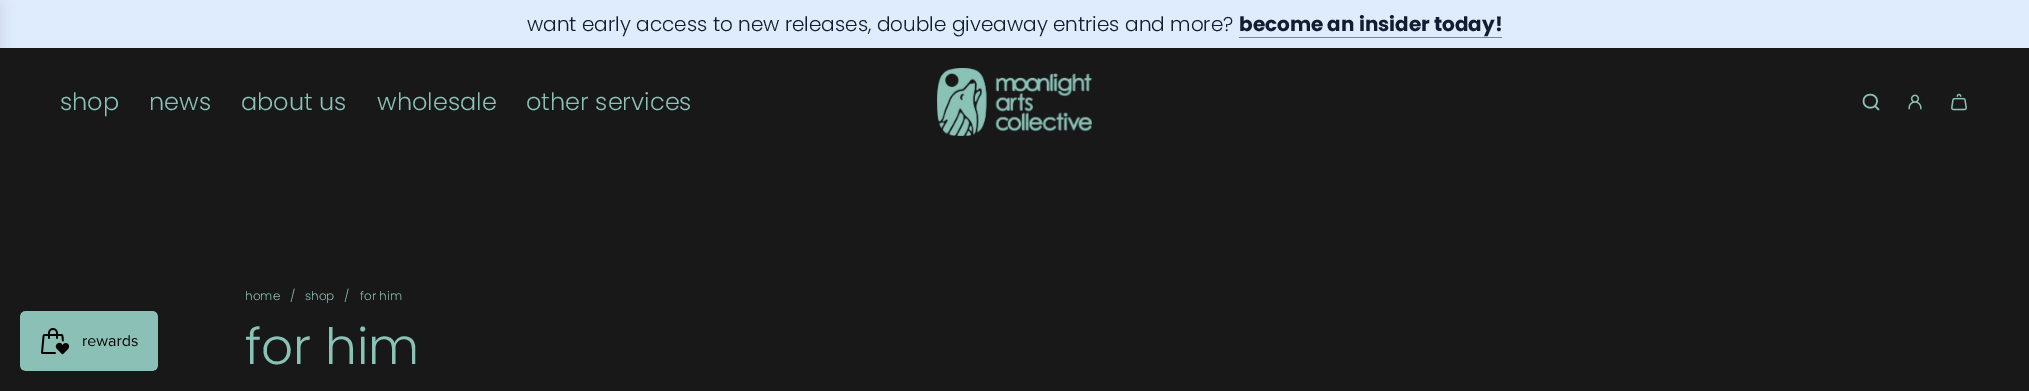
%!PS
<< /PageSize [2029 391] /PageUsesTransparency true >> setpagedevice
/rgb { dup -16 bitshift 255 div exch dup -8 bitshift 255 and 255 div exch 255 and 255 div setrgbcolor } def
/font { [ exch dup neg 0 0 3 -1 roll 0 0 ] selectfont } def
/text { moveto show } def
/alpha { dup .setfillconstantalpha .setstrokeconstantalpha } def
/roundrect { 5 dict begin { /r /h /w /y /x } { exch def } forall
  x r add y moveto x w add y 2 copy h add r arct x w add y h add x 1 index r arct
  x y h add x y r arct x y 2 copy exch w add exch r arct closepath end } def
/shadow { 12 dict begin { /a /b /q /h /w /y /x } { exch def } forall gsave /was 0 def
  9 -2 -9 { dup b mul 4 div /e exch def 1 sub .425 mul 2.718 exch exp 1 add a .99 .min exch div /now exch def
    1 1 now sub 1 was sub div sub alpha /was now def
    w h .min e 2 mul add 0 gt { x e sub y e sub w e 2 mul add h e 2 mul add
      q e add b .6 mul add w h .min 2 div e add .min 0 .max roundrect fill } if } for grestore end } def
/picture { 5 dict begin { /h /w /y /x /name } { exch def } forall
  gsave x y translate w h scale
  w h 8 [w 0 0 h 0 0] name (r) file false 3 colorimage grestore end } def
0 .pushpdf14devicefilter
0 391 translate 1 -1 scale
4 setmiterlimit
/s1 { /Poppins-Light 20 font 16#121D33 rgb } def
/s2 { /Poppins-Bold 20 font 16#121D33 rgb } def
/s3 { /Poppins-Light 24 font 16#8AC3B6 rgb } def
/s4 { /Poppins-Light 12 font 16#8AC3B6 rgb } def
/s5 { /Poppins-Light 50 font 16#8AC3B6 rgb } def
16#181819 rgb
0 0 2029 391 rectfill
16#DFECFD rgb
0 0 2029 48 rectfill
s1
(want early access to new releases, double giveaway entries and more?) 527 31 text
s2
(become an insider today!) 1239 31 text
16#798598 rgb
1239 37 263 1 rectfill
16#000000 rgb
-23 5 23 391 0 7.5 0.1 shadow
s3
(shop) 60 110 text
(news) 149 110 text
(about us) 241 110 text
(wholesale) 377 110 text
(other services) 526 110 text
(pic1.raw) 937 68 155 68 picture
1.5 setlinewidth
1 setlinecap
1 setlinejoin
1875 106 moveto 1878.5 109.5 lineto 1863.5 101 moveto 1863.5 110 1877 110 1877 101 curveto 1877 92.5 1863.5 92.5 1863.5 101 curveto closepath stroke
(pic2.raw) 1908 94 14 16 picture
(pic3.raw) 1951 93 16 18 picture
s4
(home) 245 300 text
(/) 290 300 text
(shop) 305 300 text
(/) 344 300 text
(for him) 360 300 text
s5
(for him) 245 364 text
(pic4.raw) 20 311 138 60 picture
.poppdf14devicefilter showpage
